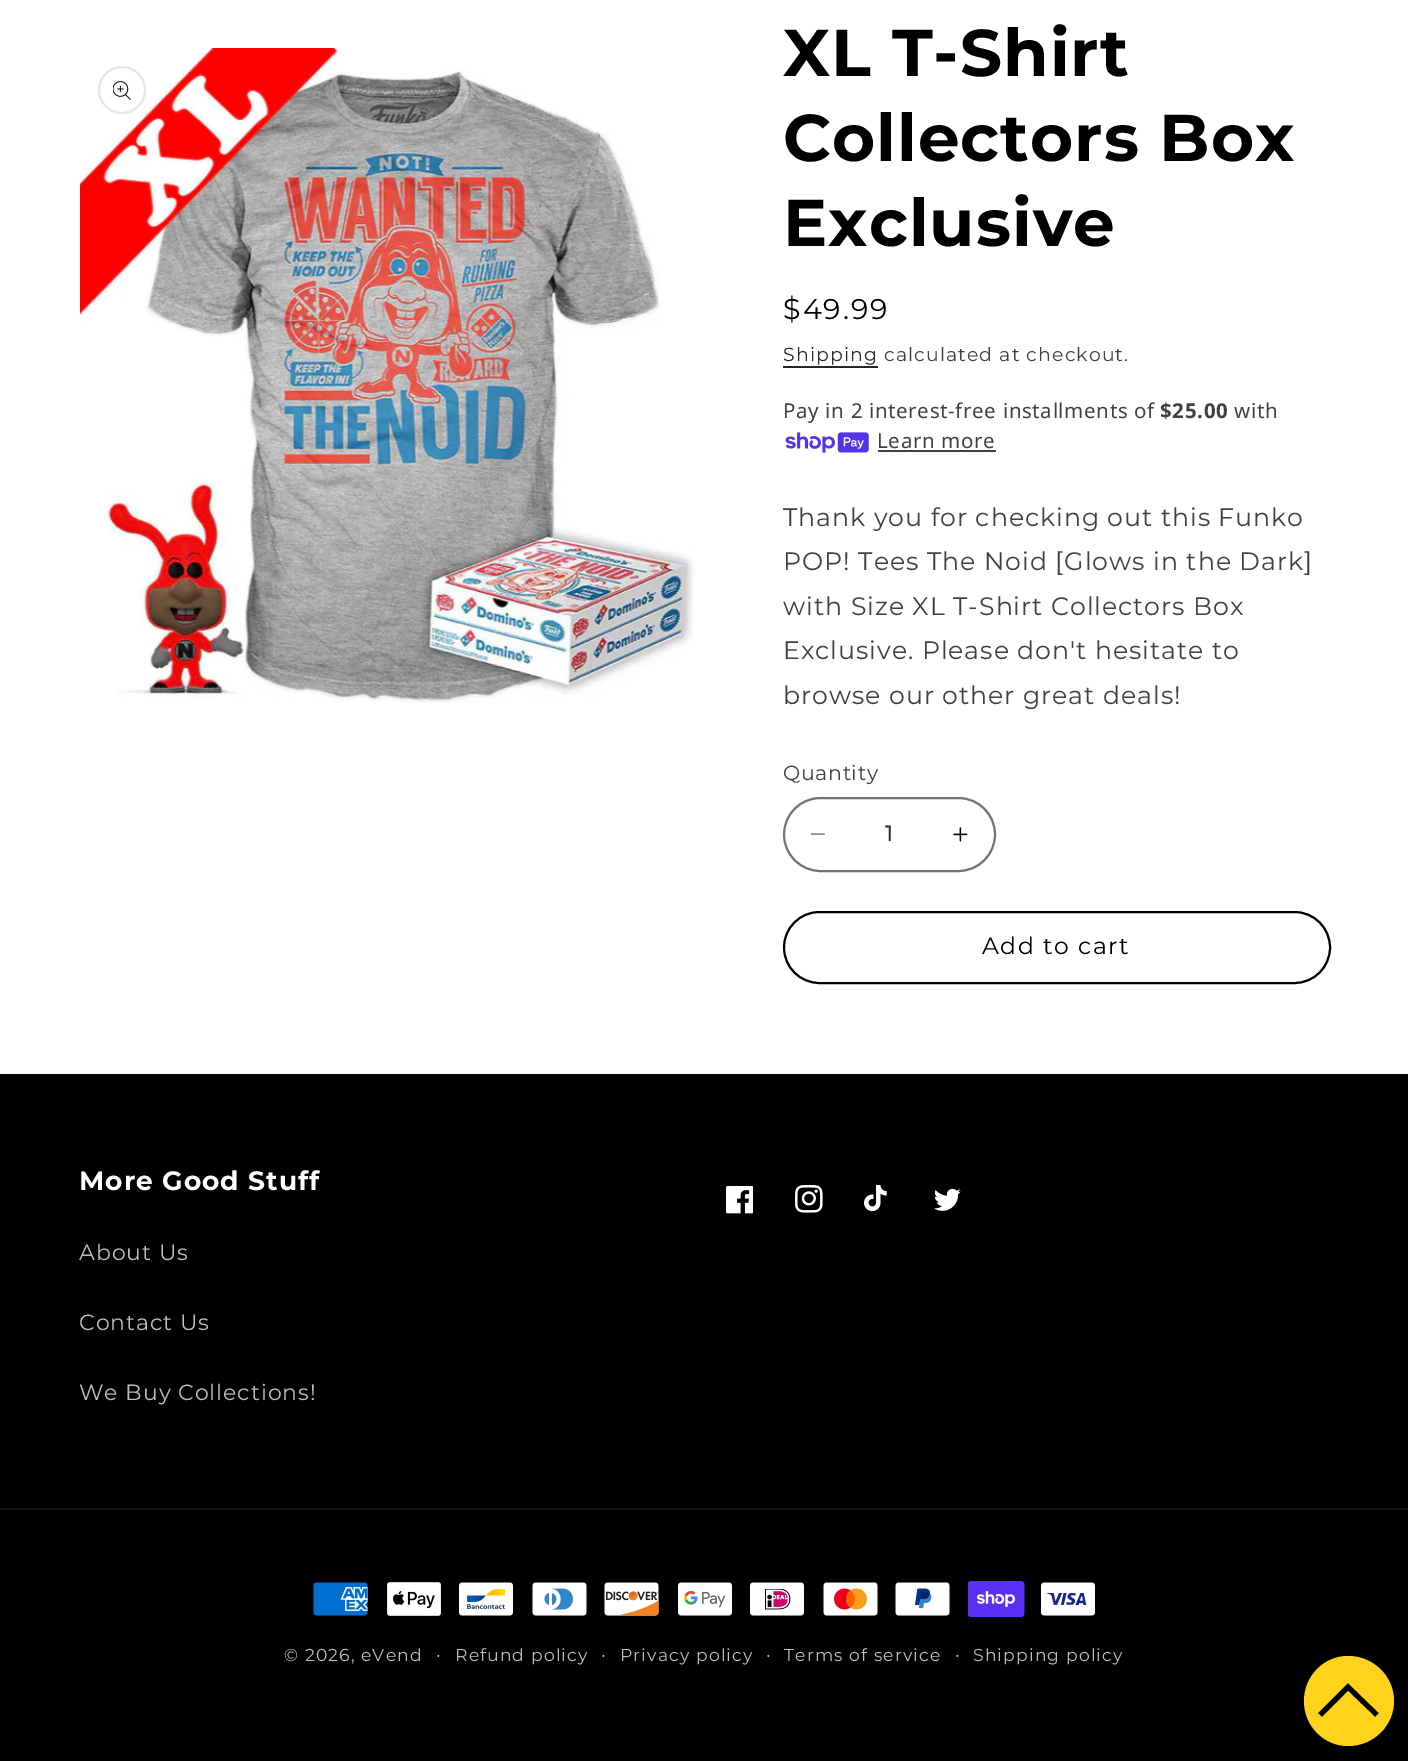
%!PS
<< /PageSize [1408 1761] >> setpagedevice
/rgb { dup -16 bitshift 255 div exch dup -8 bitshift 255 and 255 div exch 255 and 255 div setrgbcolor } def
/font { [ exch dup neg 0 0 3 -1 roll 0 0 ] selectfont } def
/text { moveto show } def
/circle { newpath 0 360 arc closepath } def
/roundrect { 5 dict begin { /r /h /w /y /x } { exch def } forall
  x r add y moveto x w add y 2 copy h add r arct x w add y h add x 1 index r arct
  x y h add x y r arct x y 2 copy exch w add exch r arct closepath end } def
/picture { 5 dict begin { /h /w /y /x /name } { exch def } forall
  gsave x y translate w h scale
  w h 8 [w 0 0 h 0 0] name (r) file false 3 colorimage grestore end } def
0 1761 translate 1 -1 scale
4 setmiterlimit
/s1 { /Montserrat-Medium 22 font 16#262626 rgb } def
16#FFFFFF rgb
0 0 1408 1761 rectfill
(pic1.raw) 80 48 615 655 picture
16#E6E6E6 rgb
2 setlinewidth
122 90 23 circle stroke
(pic2.raw) 113 81 18 19 picture
/Montserrat-Bold 66 font
16#000000 rgb
783 76 moveto 1 0 (XL T-Shirt) ashow
783 161 moveto 1 0 (Collectors Box) ashow
783 246 moveto 1 0 (Exclusive) ashow
/Montserrat-Thin 28.5 font
783 319 moveto 2 0 ($49.99) ashow
/Montserrat-Thin 18.9 font
16#262626 rgb
783 361 moveto 1.1 0 (Shipping) ashow
783 366 95 2 rectfill
16#404040 rgb
884 361 moveto 1.1 0 (calculated at checkout.) ashow
/NotoSans-Regular 20.5 font
783 418 moveto 0.65 0 (Pay in 2 interest-free installments of) ashow
/NotoSans-Bold 20.5 font
1160 418 moveto 0.65 0 ($25.00) ashow
/NotoSans-Regular 20.5 font
1234 418 moveto 0.65 0 (with) ashow
(pic3.raw) 785 432 84 21 picture
877 448 moveto 0.65 0 (Learn more) ashow
878 450 118 2 rectfill
/Montserrat-Thin 25.2 font
783 526 moveto 0.95 0 (Thank you for checking out this Funko) ashow
783 570 moveto 0.95 0 (POP! Tees The Noid [Glows in the Dark]) ashow
783 615 moveto 0.95 0 (with Size XL T-Shirt Collectors Box) ashow
783 659 moveto 0.95 0 (Exclusive. Please don't hesitate to) ashow
783 704 moveto 0.95 0 (browse our other great deals!) ashow
/Montserrat-Thin 20.5 font
783 780 moveto 0.65 0 (Quantity) ashow
(pic4.raw) 810 833 15 2 picture
(pic5.raw) 953 827 15 15 picture
16#737373 rgb
784 798 211 73 36.5 roundrect stroke
s1
(1) 885 841 text
16#000000 rgb
784 912 546 71 35.5 roundrect stroke
/Montserrat-Thin 23.5 font
982 954 moveto 1.5 0 (Add to cart) ashow
0 1074 1408 687 rectfill
/Montserrat-Bold 26.5 font
16#FFFFFF rgb
79 1190 moveto 1 0 (More Good Stuff) ashow
/Montserrat-Thin 22 font
16#BFBFBF rgb
79 1260 moveto 0.95 0 (About Us) ashow
79 1330 moveto 0.95 0 (Contact Us) ashow
79 1400 moveto 0.95 0 (We Buy Collections!) ashow
(pic6.raw) 726 1186 27 28 picture
(pic7.raw) 795 1185 28 28 picture
(pic8.raw) 864 1185 23 27 picture
(pic9.raw) 934 1188 27 23 picture
16#141414 rgb
0 1508 1408 2 rectfill
(pic10.raw) 313 1582 55 34 picture
(pic11.raw) 387 1582 54 34 picture
(pic12.raw) 459 1582 54 34 picture
(pic13.raw) 532 1582 55 34 picture
(pic14.raw) 604 1582 55 34 picture
(pic15.raw) 678 1582 54 34 picture
(pic16.raw) 750 1582 54 34 picture
(pic17.raw) 823 1582 55 34 picture
(pic18.raw) 895 1582 55 34 picture
(pic19.raw) 968 1581 57 36 picture
(pic20.raw) 1041 1582 54 34 picture
/Montserrat-Thin 17.25 font
16#BFBFBF rgb
284 1661 moveto 1.1 0 (© 2026, eVend) ashow
/Montserrat-Thin 18.9 font
436 1661 moveto 1.1 0 (·) ashow
/Montserrat-Thin 17.25 font
455 1661 moveto 1.1 0 (Refund policy) ashow
/Montserrat-Thin 18.9 font
601 1661 moveto 1.1 0 (·) ashow
/Montserrat-Thin 17.25 font
620 1661 moveto 1.1 0 (Privacy policy) ashow
/Montserrat-Thin 18.9 font
766 1661 moveto 1.1 0 (·) ashow
/Montserrat-Thin 17.25 font
784 1661 moveto 1.1 0 (Terms of service) ashow
/Montserrat-Thin 18.9 font
955 1661 moveto 1.1 0 (·) ashow
/Montserrat-Thin 17.25 font
973 1661 moveto 1.1 0 (Shipping policy) ashow
16#FFD21C rgb
1348 1656 moveto 1324 1656 1304 1676 1304 1701 curveto 1304 1726 1324 1746 1348 1746 curveto 1373 1746 1394 1726 1394 1701 curveto 1394 1676 1373 1656 1348 1656 curveto closepath 1375 1717 moveto 1348 1691 lineto 1322 1717 lineto 1318 1713 lineto 1348 1683 lineto 1379 1713 lineto closepath eofill
showpage
